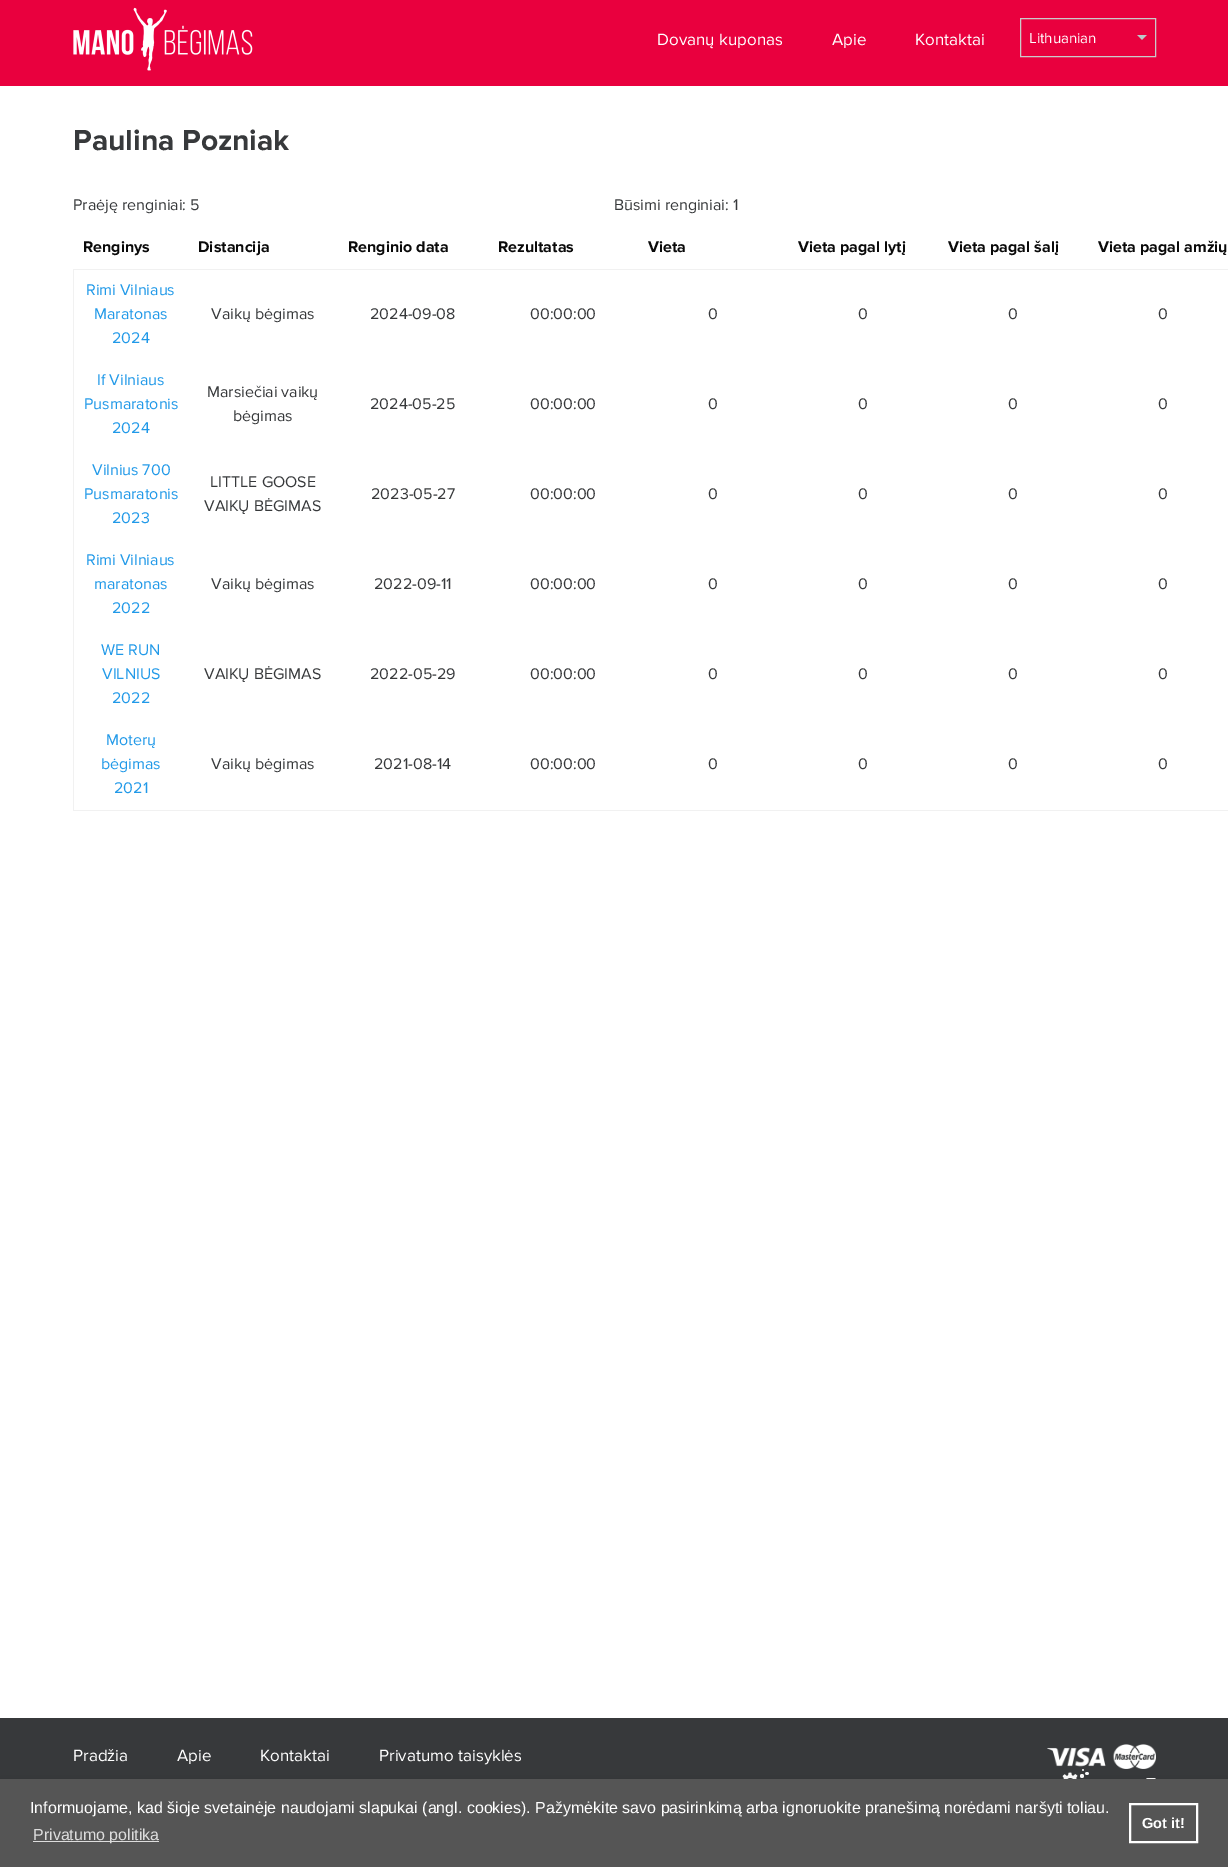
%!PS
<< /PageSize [1228 1867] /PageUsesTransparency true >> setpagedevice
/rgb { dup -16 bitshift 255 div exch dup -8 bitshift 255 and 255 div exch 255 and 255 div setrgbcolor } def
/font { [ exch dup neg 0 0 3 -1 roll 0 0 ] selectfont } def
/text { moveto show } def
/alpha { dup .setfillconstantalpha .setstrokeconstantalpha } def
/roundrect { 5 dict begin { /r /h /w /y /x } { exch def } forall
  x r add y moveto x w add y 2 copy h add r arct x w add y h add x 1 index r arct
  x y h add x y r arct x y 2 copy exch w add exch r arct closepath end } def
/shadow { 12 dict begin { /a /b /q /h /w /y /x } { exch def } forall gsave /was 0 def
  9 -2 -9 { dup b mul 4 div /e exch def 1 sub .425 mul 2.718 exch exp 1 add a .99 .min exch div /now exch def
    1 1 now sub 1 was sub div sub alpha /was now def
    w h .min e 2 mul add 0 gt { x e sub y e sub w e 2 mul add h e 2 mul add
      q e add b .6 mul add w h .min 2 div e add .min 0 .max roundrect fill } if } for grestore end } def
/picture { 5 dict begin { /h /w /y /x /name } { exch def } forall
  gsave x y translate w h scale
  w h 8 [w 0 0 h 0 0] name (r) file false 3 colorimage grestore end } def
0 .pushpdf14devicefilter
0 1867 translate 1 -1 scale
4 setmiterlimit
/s1 { /ProximaNova-Regular 17 font 16#FFFFFF rgb } def
/s2 { /ProximaNova-Regular 15 font 16#FFFFFF rgb } def
/s3 { /ProximaNova-Bold 30 font 16#37393B rgb } def
/s4 { /ProximaNova-Regular 16 font 16#37393B rgb } def
/s5 { /ProximaNova-Bold 16 font 16#0A0A0A rgb } def
/s6 { /ProximaNova-Regular 16 font 16#2199E8 rgb } def
/s7 { /LiberationSans-Regular 16 font 16#FFFFFF rgb } def
/s8 { /LiberationSans-Regular 16 font 16#DDDDDD rgb } def
/s9 { /LiberationSans-Bold 14.5 font 16#FFFFFF rgb } def
16#FFFFFF rgb
0 0 1228 1867 rectfill
16#E9003E rgb
0 0 1228 86 rectfill
(pic1.raw) 73 7 180 64 picture
s1
(Dovanų kuponas) 657 45 text
(Apie) 832 45 text
(Kontaktai) 915 45 text
(pic2.raw) 1137 35 10 5 picture
16#CACACA rgb
1020.5 18.5 135 38 rectstroke
s2
(Lithuanian) 1029 43 text
s3
(Paulina Pozniak) 73 150 text
s4
(Praėję renginiai: 5) 73 210 text
(Būsimi renginiai: 1) 614 210 text
s5
(Renginys) 83 252 text
(Distancija) 198 252 text
(Renginio data) 348 252 text
(Rezultatas) 498 252 text
(Vieta) 648 252 text
(Vieta pagal lytį) 798 252 text
(Vieta pagal šalį) 948 252 text
(Vieta pagal amžių) 1098 252 text
16#F1F1F1 rgb
73 269 1155 1 rectfill
73 810 1155 1 rectfill
73 269 1 542 rectfill
s6
(Rimi Vilniaus) 86 295 text
(Maratonas) 94 319 text
(2024) 112 343 text
s4
(Vaikų bėgimas) 211 319 text
(2024-09-08) 370 319 text
(00:00:00) 530 319 text
(0) 708 319 text
(0) 858 319 text
(0) 1008 319 text
(0) 1158 319 text
s6
(If Vilniaus) 97 385 text
(Pusmaratonis) 84 409 text
(2024) 112 433 text
s4
(Marsiečiai vaikų) 207 397 text
(bėgimas) 233 421 text
(2024-05-25) 370 409 text
(00:00:00) 530 409 text
(0) 708 409 text
(0) 858 409 text
(0) 1008 409 text
(0) 1158 409 text
s6
(Vilnius 700) 92 475 text
(Pusmaratonis) 84 499 text
(2023) 112 523 text
s4
(LITTLE GOOSE) 210 487 text
(VAIKŲ BĖGIMAS) 204 511 text
(2023-05-27) 371 499 text
(00:00:00) 530 499 text
(0) 708 499 text
(0) 858 499 text
(0) 1008 499 text
(0) 1158 499 text
s6
(Rimi Vilniaus) 86 565 text
(maratonas) 94 589 text
(2022) 112 613 text
s4
(Vaikų bėgimas) 211 589 text
(2022-09-11) 374 589 text
(00:00:00) 530 589 text
(0) 708 589 text
(0) 858 589 text
(0) 1008 589 text
(0) 1158 589 text
s6
(WE RUN) 101 655 text
(VILNIUS) 102 679 text
(2022) 112 703 text
s4
(VAIKŲ BĖGIMAS) 204 679 text
(2022-05-29) 370 679 text
(00:00:00) 530 679 text
(0) 708 679 text
(0) 858 679 text
(0) 1008 679 text
(0) 1158 679 text
s6
(Moterų) 106 745 text
(bėgimas) 101 769 text
(2021) 114 793 text
s4
(Vaikų bėgimas) 211 769 text
(2021-08-14) 374 769 text
(00:00:00) 530 769 text
(0) 708 769 text
(0) 858 769 text
(0) 1008 769 text
(0) 1158 769 text
0 1718 1228 61 rectfill
s1
(Pradžia) 73 1761 text
(Apie) 177 1761 text
(Kontaktai) 260 1761 text
(Privatumo taisyklės) 379 1761 text
(pic3.raw) 1047 1744 109 25 picture
(pic4.raw) 1062 1769 94 10 picture
16#000000 rgb
0 1779 1228 88 0 5 0.1 shadow
16#555555 rgb
0 1779 1228 88 rectfill
s7
(Informuojame, kad šioje svetainėje naudojami slapukai \(angl. cookies\). Pažymėkite savo pasirinkimą arba ignoruokite pranešimą norėdami naršyti toliau.) 30 1813 text
16#DDDDDD rgb
33 1841 126 1 rectfill
(Privatumo politika) 33 1840 text
16#FFFFFF rgb
2 setlinewidth
1130 1804 67 38 rectstroke
s9
(Got it!) 1142 1828 text
.poppdf14devicefilter showpage
